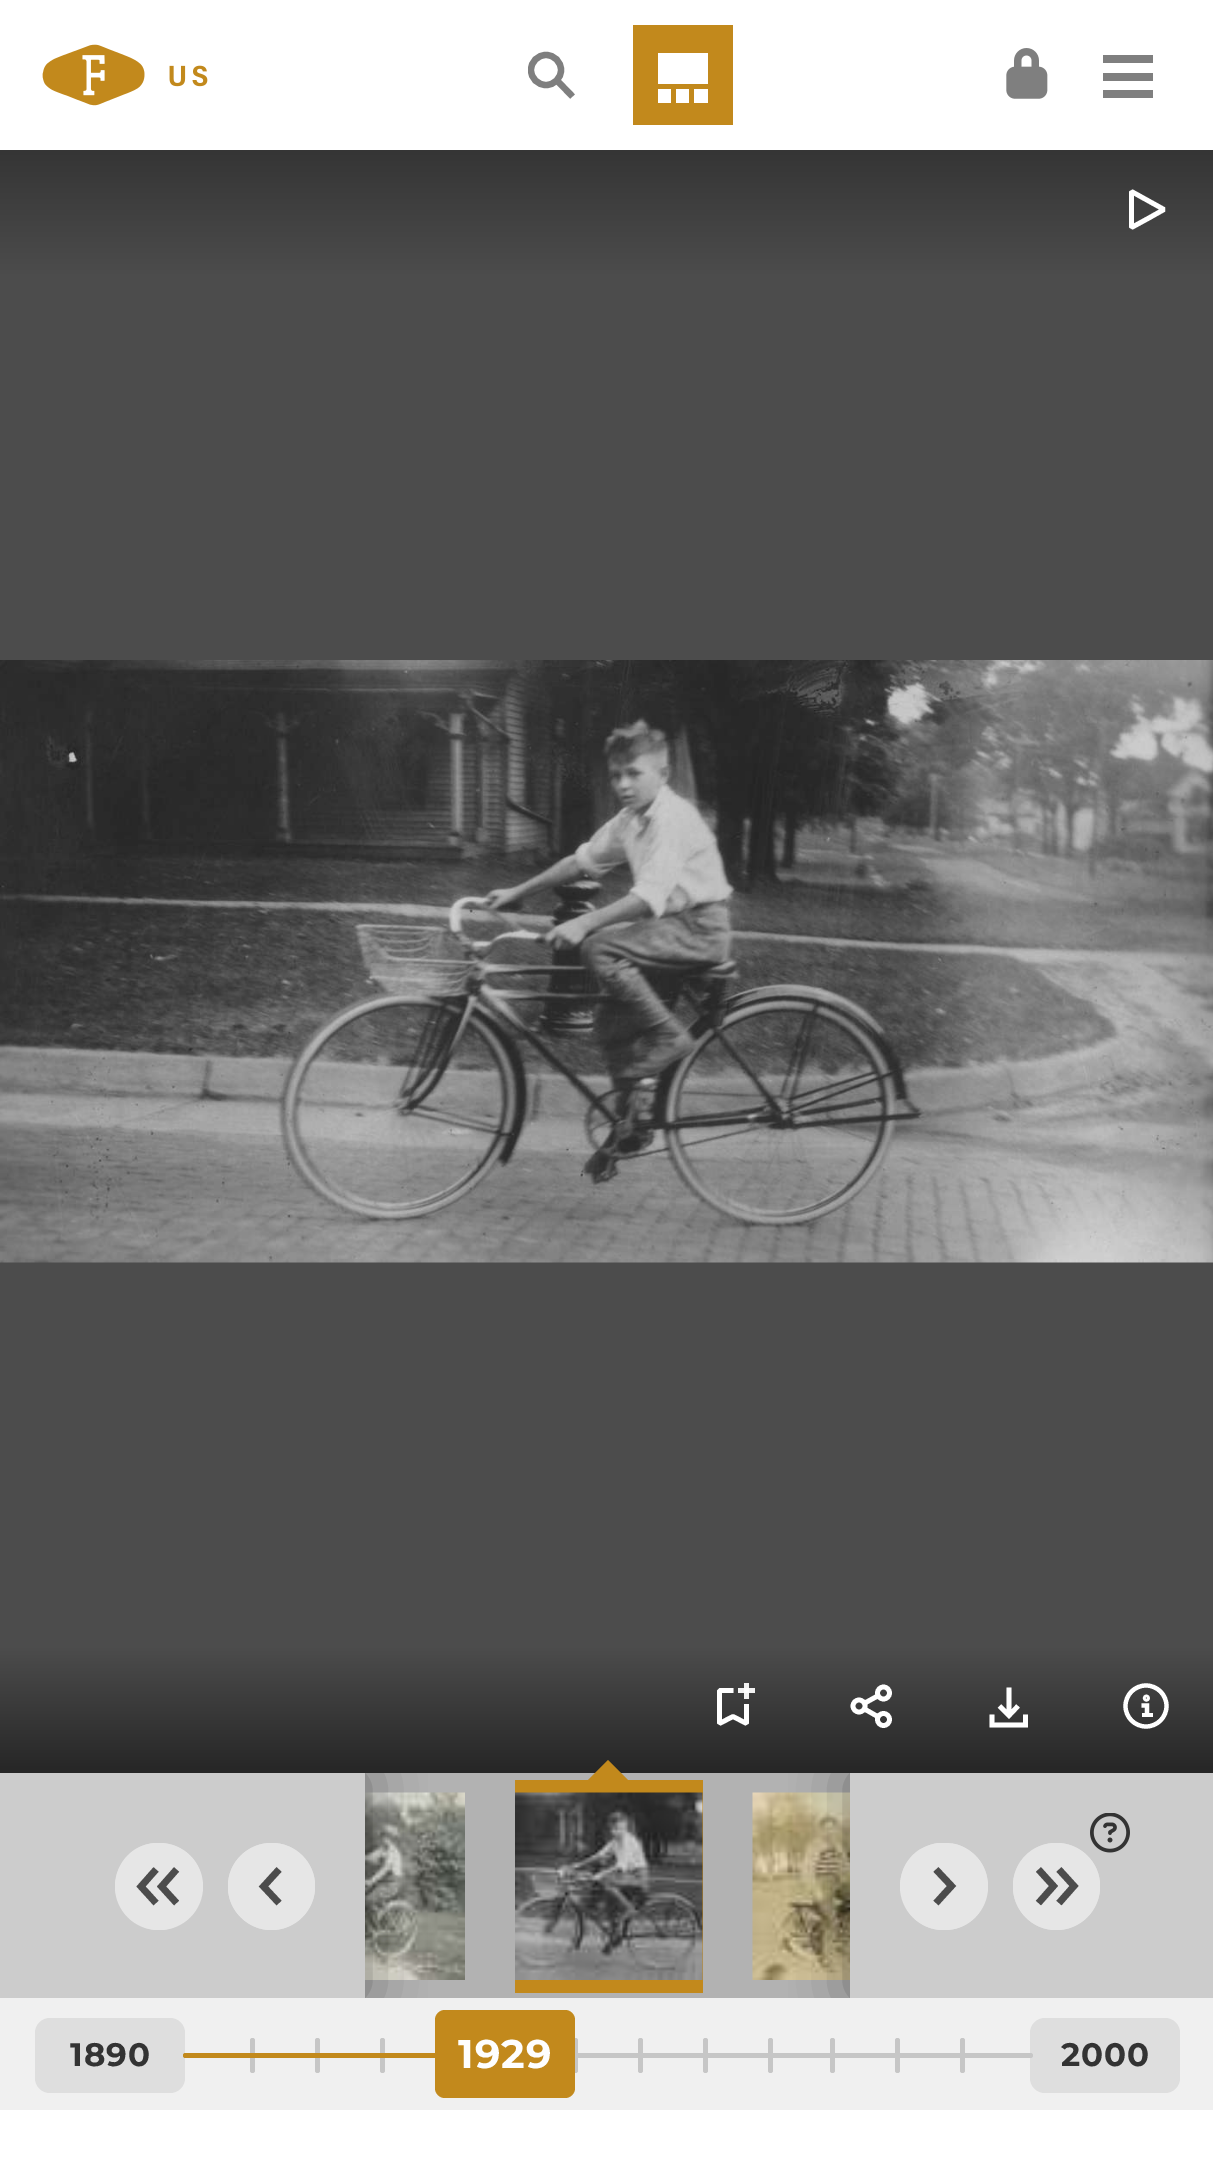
%!PS
<< /PageSize [1213 2159] /PageUsesTransparency true >> setpagedevice
/rgb { dup -16 bitshift 255 div exch dup -8 bitshift 255 and 255 div exch 255 and 255 div setrgbcolor } def
/font { [ exch dup neg 0 0 3 -1 roll 0 0 ] selectfont } def
/alpha { dup .setfillconstantalpha .setstrokeconstantalpha } def
/circle { newpath 0 360 arc closepath } def
/roundrect { 5 dict begin { /r /h /w /y /x } { exch def } forall
  x r add y moveto x w add y 2 copy h add r arct x w add y h add x 1 index r arct
  x y h add x y r arct x y 2 copy exch w add exch r arct closepath end } def
/shadow { 12 dict begin { /a /b /q /h /w /y /x } { exch def } forall gsave /was 0 def
  9 -2 -9 { dup b mul 4 div /e exch def 1 sub .425 mul 2.718 exch exp 1 add a .99 .min exch div /now exch def
    1 1 now sub 1 was sub div sub alpha /was now def
    w h .min e 2 mul add 0 gt { x e sub y e sub w e 2 mul add h e 2 mul add
      q e add b .6 mul add w h .min 2 div e add .min 0 .max roundrect fill } if } for grestore end } def
/picture { 5 dict begin { /h /w /y /x /name } { exch def } forall
  gsave x y translate w h scale
  w h 8 [w 0 0 h 0 0] name (r) file false 3 colorimage grestore end } def
0 .pushpdf14devicefilter
0 2159 translate 1 -1 scale
4 setmiterlimit
16#FFFFFF rgb
0 0 1213 2159 rectfill
(pic1.raw) 42 44 166 62 picture
gsave
528 43 47 65 rectclip
16#7F7F7F rgb
6.3 setlinewidth
546 70 15 circle stroke
grestore
16#7F7F7F rgb
6.3 setlinewidth
557 80.5 moveto 572.5 96.5 lineto stroke
16#C2891C rgb
633 25 100 100 rectfill
16#FFFFFF rgb
658 53 50 31 rectfill
658 89 13 14 rectfill
676 89 13 14 rectfill
694 89 14 14 rectfill
(pic2.raw) 1006 48 42 51 picture
16#7F7F7F rgb
1103 73 50 8 rectfill
1103 55 50 8 rectfill
1103 90 50 8 rectfill
gsave 0 150 moveto 1213 150 lineto 1213 275 lineto 0 275 lineto closepath clip newpath
<< /ShadingType 2 /ColorSpace /DeviceRGB /Coords [608 150 608 275] /Extend [true true] /Function << /FunctionType 2 /Domain [0 1] /C0 [0.208 0.208 0.208] /C1 [0.298 0.298 0.298] /N 1 >> >> shfill grestore
16#FFFFFF rgb
4.7 setlinewidth
2 setlinejoin
1148 218.5 moveto 1131.5 227.5 lineto 1131.5 191.5 lineto 1164 209.5 lineto closepath stroke
gsave 0 1648 moveto 1213 1648 lineto 1213 1773 lineto 0 1773 lineto closepath clip newpath
<< /ShadingType 2 /ColorSpace /DeviceRGB /Coords [608 1648 608 1773] /Extend [true true] /Function << /FunctionType 2 /Domain [0 1] /C0 [0.298 0.298 0.298] /C1 [0.149 0.149 0.149] /N 1 >> >> shfill grestore
gsave 738 1688 moveto 755 1688 lineto 755 1693 lineto 738 1693 lineto closepath clip newpath
<< /ShadingType 2 /ColorSpace /DeviceRGB /Coords [608 1648 608 1773] /Extend [true true] /Function << /FunctionType 2 /Domain [0 1] /C0 [0.957 0.957 0.957] /C1 [0.949 0.949 0.949] /N 1 >> >> shfill grestore
gsave 744 1683 moveto 749 1683 lineto 749 1699 lineto 744 1699 lineto closepath clip newpath
<< /ShadingType 2 /ColorSpace /DeviceRGB /Coords [608 1648 608 1773] /Extend [true true] /Function << /FunctionType 2 /Domain [0 1] /C0 [0.957 0.957 0.957] /C1 [0.949 0.949 0.949] /N 1 >> >> shfill grestore
gsave 744 1688 moveto 749 1688 lineto 749 1693 lineto 744 1693 lineto closepath clip newpath
<< /ShadingType 2 /ColorSpace /DeviceRGB /Coords [608 1648 608 1773] /Extend [true true] /Function << /FunctionType 2 /Domain [0 1] /C0 [0.996 0.996 0.996] /C1 [0.996 0.996 0.996] /N 1 >> >> shfill grestore
746.5 1704 moveto 746.5 1723.5 lineto 733 1716.5 lineto 719.5 1723.5 lineto 719.5 1690.5 lineto 733.5 1690.5 lineto stroke
0 setlinejoin
883.5 1693 6 circle stroke
859 1706 6 circle stroke
883.5 1719.5 6 circle stroke
878.5 1695.5 moveto 864 1703.5 lineto 864.5 1709 moveto 878.5 1717 lineto stroke
1009 1687.5 moveto 1009 1715.5 lineto 1018 1706 moveto 1009 1715.5 lineto 999.5 1706 lineto 992 1714.5 moveto 992 1725 lineto 1025.5 1725 lineto 1025.5 1714.5 lineto stroke
4.2 setlinewidth
1146 1706 20.5 circle stroke
1141.5 1705.5 moveto 1147 1705.5 lineto 1147 1715 lineto stroke
1142 1713 11 4 rectfill
1146.4 1698.1 1.3 circle stroke
16#4C4C4C rgb
0 275 1213 1373 rectfill
(pic3.raw) 0 660 1213 603 picture
16#CCCCCC rgb
0 1773 1213 225 rectfill
16#B2B2B2 rgb
365 1773 485 225 rectfill
(pic4.raw) 365 1792 100 188 picture
16#F0F0F0 rgb
0 1998 1213 112 rectfill
16#DEDEDE rgb
35 2018 150 75 15 roundrect fill
16#C6C6C6 rgb
250 2038 5 35 2.5 roundrect fill
315 2038 5 35 2.5 roundrect fill
380 2038 5 35 2.5 roundrect fill
573 2038 5 35 2.5 roundrect fill
638 2038 5 35 2.5 roundrect fill
703 2038 5 35 2.5 roundrect fill
768 2038 5 35 2.5 roundrect fill
830 2038 5 35 2.5 roundrect fill
895 2038 5 35 2.5 roundrect fill
960 2038 5 35 2.5 roundrect fill
16#DEDEDE rgb
1030 2018 150 75 15 roundrect fill
16#C6C6C6 rgb
183 2053 850 5 2.5 roundrect fill
16#C2891C rgb
183 2053 327 5 2.5 roundrect fill
435 2010 140 88 10 roundrect fill
gsave
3 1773 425 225 rectclip
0 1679 moveto 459 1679 lineto 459 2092 lineto 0 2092 lineto closepath 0 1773 moveto 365 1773 lineto 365 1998 lineto 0 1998 lineto closepath eoclip newpath
16#000000 rgb
0 1773 365 225 0 31 0.4 shadow
grestore
16#E6E6E6 rgb
115 1843 88 87 43.5 roundrect fill
158 1843 moveto 190 1843 211 1873 199 1903 curveto 195 1911 190 1918 183 1922 curveto 176 1927 168 1930 159 1930 curveto 150 1930 142 1927 135 1922 curveto 99 1898 116 1843 158 1843 curveto closepath fill
16#4C4C4C rgb
6.7 setlinewidth
176.5 1869.5 moveto 161.5 1886.5 lineto 176.5 1903 lineto 156 1869.5 moveto 141 1886.5 lineto 156 1903 lineto stroke
16#E6E6E6 rgb
271.5 1886.5 43.5 circle fill
272 1843 moveto 295 1843 315 1862 315 1886 curveto 315 1910 295 1930 271 1930 curveto 260 1930 249 1925 242 1918 curveto 233 1910 228 1899 228 1886 curveto 228 1862 248 1843 272 1843 curveto closepath fill
16#4C4C4C rgb
279 1869.5 moveto 263.5 1886.5 lineto 279 1903 lineto stroke
16#C2891C rgb
628 1780 moveto 588 1780 lineto 608 1760 lineto closepath fill
515 1780 188 213 rectfill
(pic5.raw) 515 1792 188 188 picture
(pic6.raw) 752 1792 98 188 picture
gsave
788 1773 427 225 rectclip
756 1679 moveto 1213 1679 lineto 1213 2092 lineto 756 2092 lineto closepath 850 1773 moveto 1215 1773 lineto 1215 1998 lineto 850 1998 lineto closepath eoclip newpath
16#000000 rgb
850 1773 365 225 0 31 0.4 shadow
grestore
16#E6E6E6 rgb
900 1843 88 87 43.5 roundrect fill
gsave
900 1843 88 87 rectclip
944 1930 moveto 991 1930 1005 1865 961 1846 curveto 954 1843 952 1844 944 1843 curveto 936 1842 926 1846 919 1850 curveto 884 1874 902 1930 944 1930 curveto closepath fill
grestore
16#4C4C4C rgb
936 1903 moveto 951.5 1886 lineto 936 1869.5 lineto stroke
16#E6E6E6 rgb
1056.5 1886.5 43.5 circle fill
1056 1843 moveto 1080 1843 1100 1862 1100 1886 curveto 1100 1910 1080 1930 1056 1930 curveto 1032 1930 1013 1910 1013 1886 curveto 1013 1862 1032 1843 1056 1843 curveto closepath fill
16#4C4C4C rgb
1038.5 1903 moveto 1053.5 1886 lineto 1038.5 1869.5 lineto 1059 1903 moveto 1074 1886 lineto 1059 1869.5 lineto stroke
(pic7.raw) 1090 1813 40 40 picture
/Montserrat-Bold 32.5 font
16#333333 rgb
70 2066 moveto 1 0 (1890) ashow
/Montserrat-Bold 40 font
16#FEFEFE rgb
458 2068 moveto 1 0 (1929) ashow
/Montserrat-Bold 32.5 font
16#333333 rgb
1061 2066 moveto 1 0 (2000) ashow
.poppdf14devicefilter showpage
